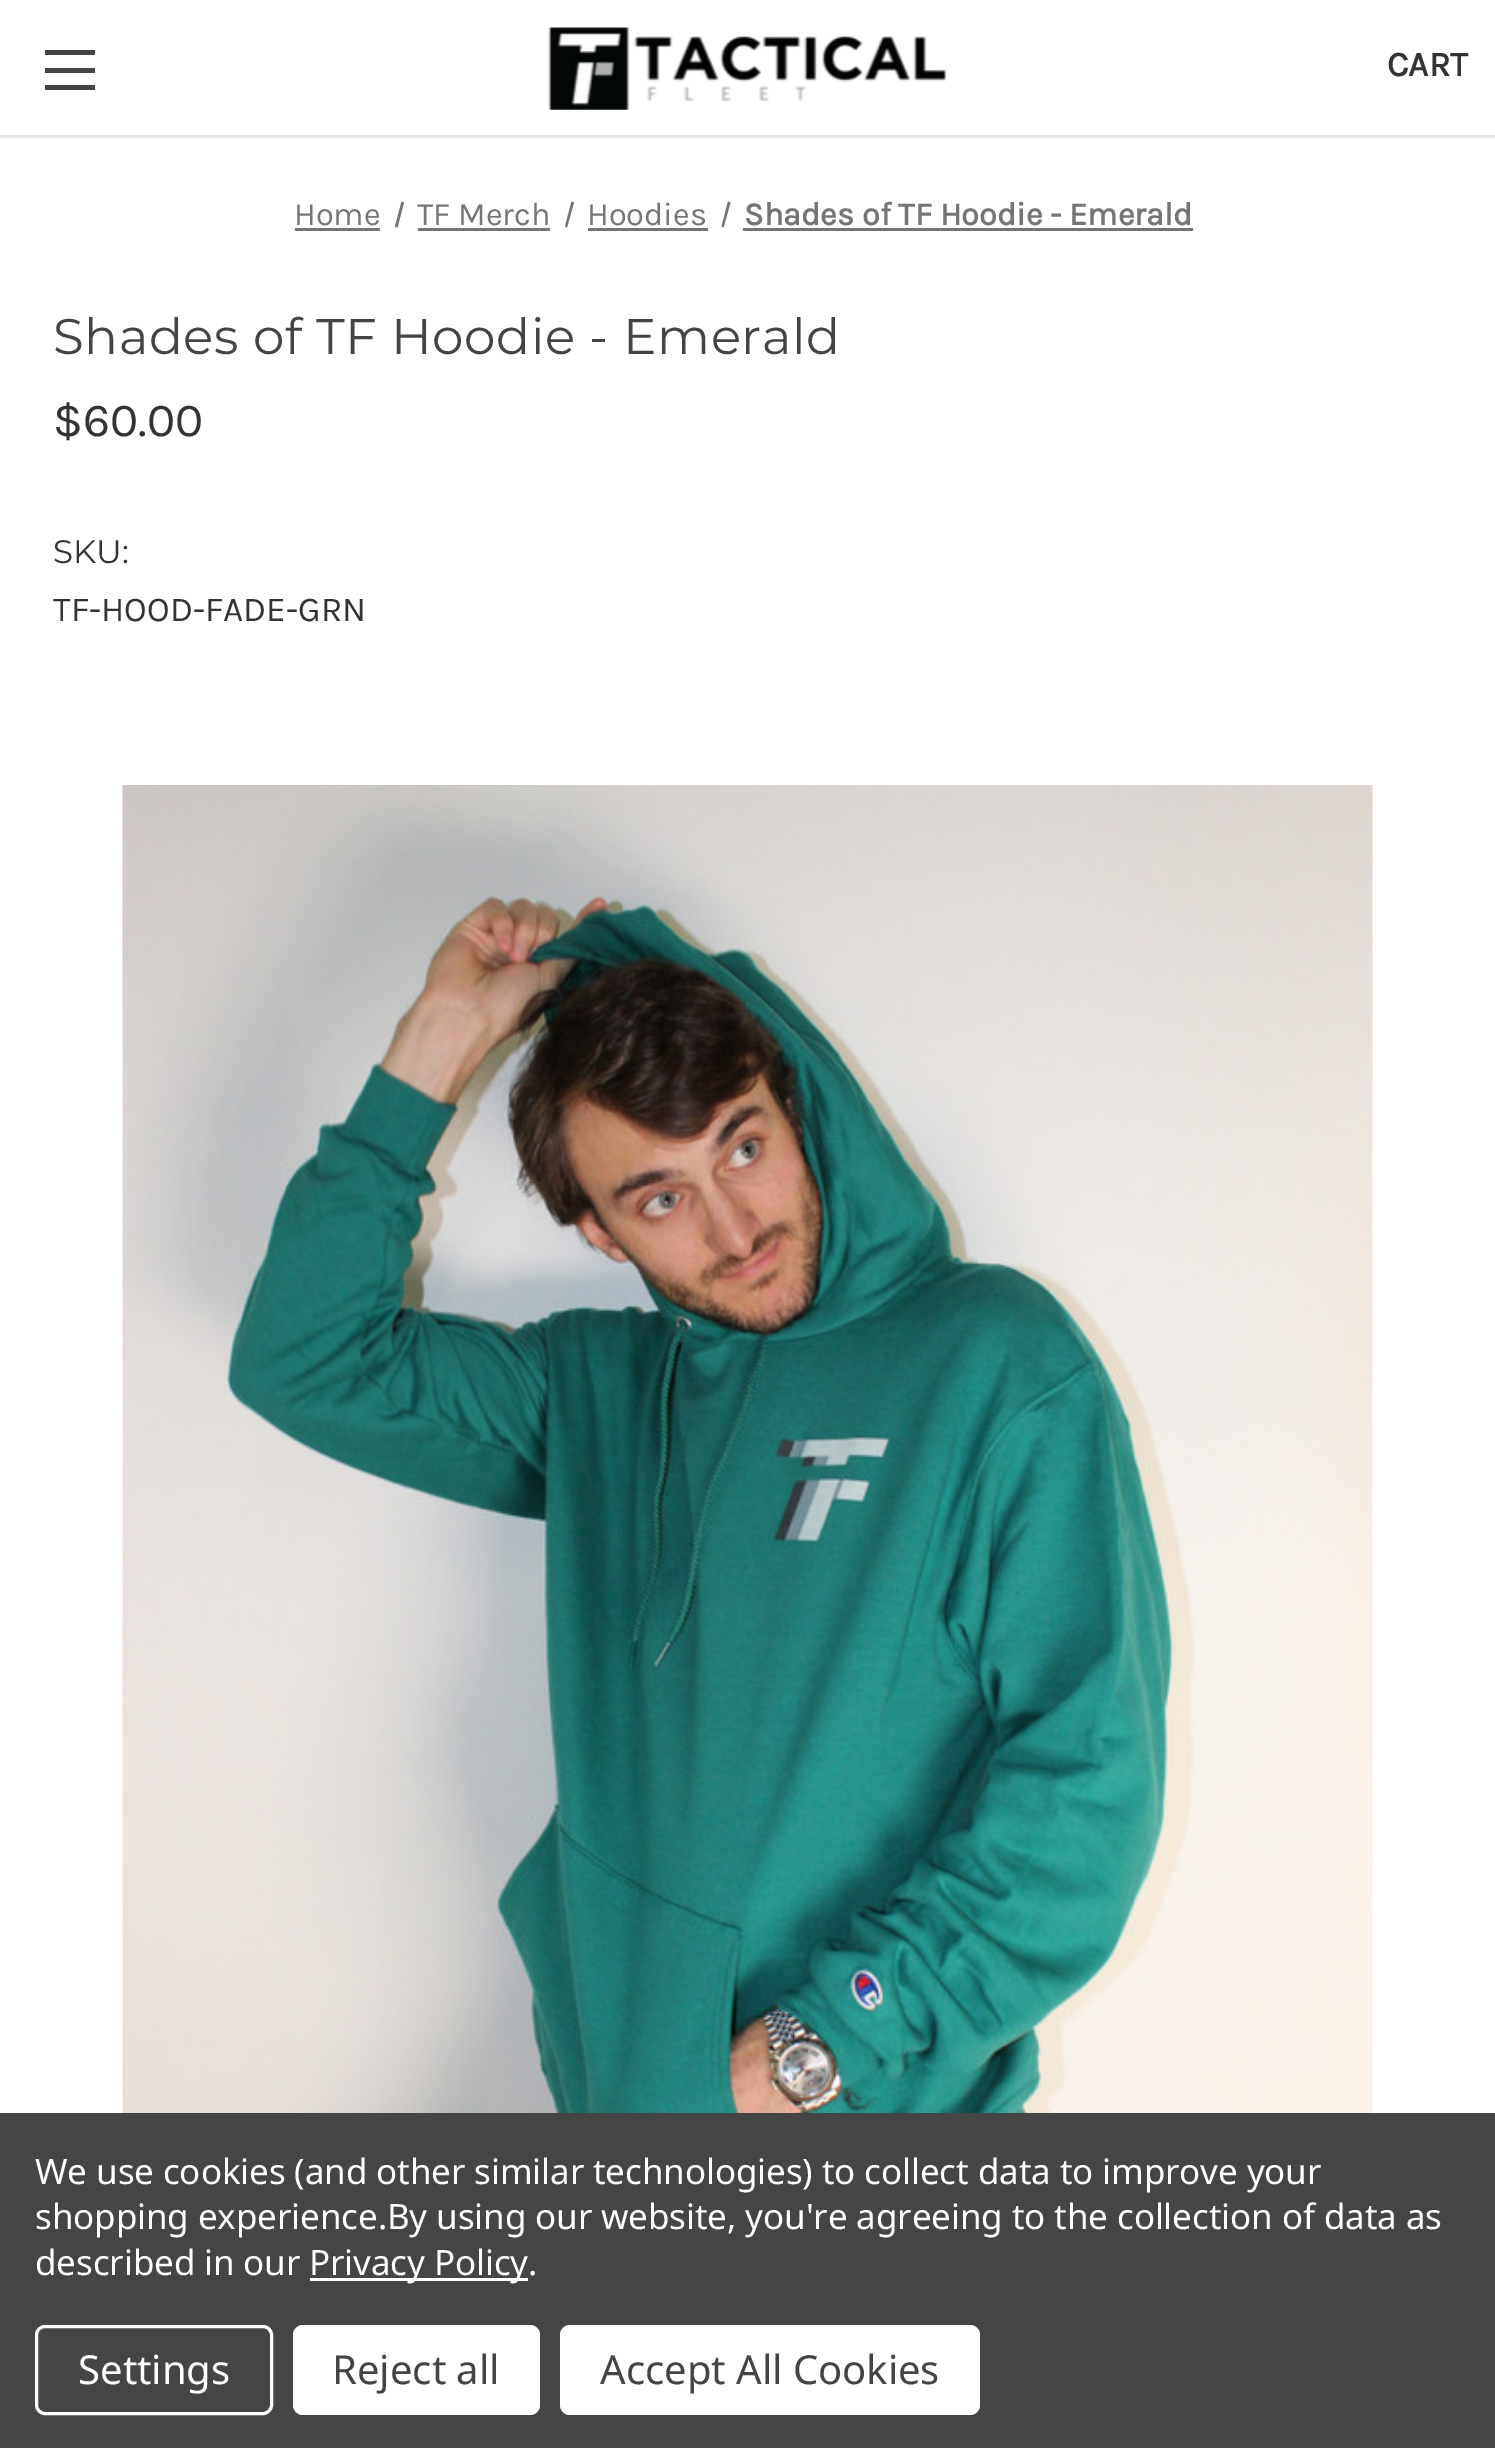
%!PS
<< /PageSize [1495 2448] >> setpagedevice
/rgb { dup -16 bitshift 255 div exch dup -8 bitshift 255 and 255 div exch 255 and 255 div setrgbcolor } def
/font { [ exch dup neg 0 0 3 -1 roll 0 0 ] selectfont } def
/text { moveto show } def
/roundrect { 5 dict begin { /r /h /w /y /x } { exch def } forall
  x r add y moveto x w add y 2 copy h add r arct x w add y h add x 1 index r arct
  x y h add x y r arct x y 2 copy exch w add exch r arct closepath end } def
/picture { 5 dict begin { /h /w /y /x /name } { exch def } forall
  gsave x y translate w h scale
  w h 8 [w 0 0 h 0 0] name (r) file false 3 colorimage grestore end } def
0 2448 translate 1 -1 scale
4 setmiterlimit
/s1 { /Karla-Bold 35 font 16#333333 rgb } def
/s2 { /Karla-Regular 32.5 font 16#757575 rgb } def
/s3 { /Karla-Bold 32.5 font 16#757575 rgb } def
/s4 { /Karla-Regular 47.5 font 16#333333 rgb } def
/s5 { /Montserrat-Regular 32.5 font 16#333333 rgb } def
/s6 { /Karla-Regular 35 font 16#333333 rgb } def
/s7 { /NotoSans-Regular 40 font 16#FFFFFF rgb } def
/s8 { /NotoSans-Regular 40 font 16#444444 rgb } def
16#FFFFFF rgb
0 0 1495 2448 rectfill
16#E5E5E5 rgb
0 135 1495 3 rectfill
16#444444 rgb
45 68 50 5 rectfill
45 50 50 5 rectfill
45 85 50 5 rectfill
(pic1.raw) 548 27 398 83 picture
s1
(CART) 1387 76 text
s2
(Home) 294 225 text
295 228 85 3 rectfill
401.5 201.5 moveto 404 202.5 lineto 397.5 227.5 lineto 395 226.5 lineto closepath fill
(TF Merch) 417 225 text
418 228 132 3 rectfill
571.5 201.5 moveto 574 202.5 lineto 567 227.5 lineto 565 226.5 lineto closepath fill
(Hoodies) 587 225 text
588 228 120 3 rectfill
728 201.5 moveto 730.5 202.5 lineto 723.5 227.5 lineto 721.5 226.5 lineto closepath fill
s3
(Shades of TF Hoodie - Emerald) 744 225 text
743 228 450 3 rectfill
/Montserrat-Regular 50 font
16#444444 rgb
53 354 moveto 0.6 0 (Shades of TF Hoodie - Emerald) ashow
s4
($60.00) 53 436 text
s5
(SKU:) 53 563 text
s6
(TF-HOOD-FADE-GRN) 53 621 text
(pic2.raw) 122 785 1251 1328 picture
16#454545 rgb
0 2113 1495 335 rectfill
/NotoSans-Regular 35 font
16#FFFFFF rgb
35 2184 moveto -0.12 0 (We use cookies \(and other similar technologies\) to collect data to improve your) ashow
35 2229 moveto -0.12 0 (shopping experience.By using our website, you're agreeing to the collection of data as) ashow
35 2275 moveto -0.12 0 (described in our) ashow
310 2278 218 3 rectfill
309 2275 moveto -0.12 0 (Privacy Policy.) ashow
3 setlinewidth
36.5 2326.5 235 87 8.5 roundrect stroke
s7
(Settings) 78 2384 text
293 2325 247 90 10 roundrect fill
s8
(Reject all) 332 2384 text
16#FFFFFF rgb
560 2325 420 90 10 roundrect fill
s8
(Accept All Cookies) 600 2384 text
showpage
